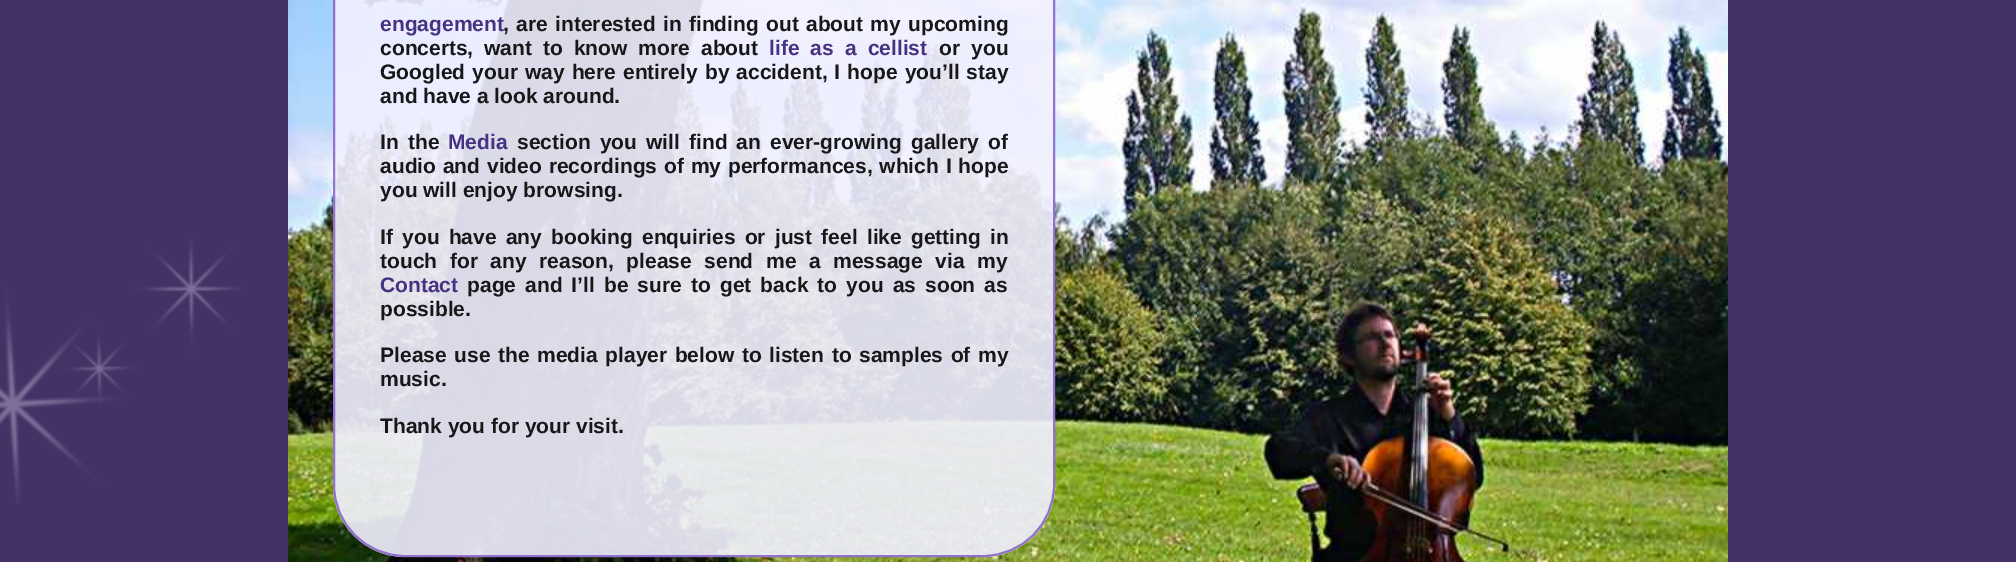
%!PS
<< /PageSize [2016 562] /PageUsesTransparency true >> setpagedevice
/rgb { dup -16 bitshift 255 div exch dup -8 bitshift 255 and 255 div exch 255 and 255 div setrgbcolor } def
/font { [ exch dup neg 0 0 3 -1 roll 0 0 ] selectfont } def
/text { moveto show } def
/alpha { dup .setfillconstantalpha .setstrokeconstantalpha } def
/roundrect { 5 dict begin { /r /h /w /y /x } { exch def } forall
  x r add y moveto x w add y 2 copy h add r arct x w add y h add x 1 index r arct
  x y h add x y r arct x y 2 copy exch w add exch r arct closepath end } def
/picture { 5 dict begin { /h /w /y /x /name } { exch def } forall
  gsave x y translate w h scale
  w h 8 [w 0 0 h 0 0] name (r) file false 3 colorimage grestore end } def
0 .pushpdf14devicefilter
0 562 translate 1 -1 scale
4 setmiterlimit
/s1 { /LiberationSans-Bold 21 font 16#473181 rgb } def
/s2 { /LiberationSans-Bold 21 font 16#171719 rgb } def
16#443266 rgb
0 0 2016 562 rectfill
(pic1.raw) 0 238 242 266 picture
(pic2.raw) 288 0 1440 562 picture
0.9 alpha
16#F1F0FF rgb
333 -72 722 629 72 roundrect fill
16#8865C8 rgb
2 setlinewidth
334 -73 720 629 71 roundrect stroke
1 alpha
s1
(engagement) 380 31 text
16#171719 rgb
503 31 moveto 1.5 0 32 (, are interested in finding out about my upcoming) widthshow
(concerts) 380 55 text
467 55 moveto 5.25 0 32 (, want to know more about) widthshow
16#473181 rgb
769 55 moveto 5.25 0 32 (life as a cellist) widthshow
16#171719 rgb
939 55 moveto 5.25 0 32 (or you) widthshow
380 79 moveto 1.25 0 32 (Googled your way here entirely by accident, I hope you’ll stay) widthshow
(and have a look around.) 380 103 text
380 149 moveto 3.25 0 32 (In the) widthshow
s1
(Media) 448 149 text
16#171719 rgb
517 149 moveto 3.25 0 32 (section you will find an ever-growing gallery of) widthshow
380 173 moveto 1 0 32 (audio and video recordings of my performances, which I hope) widthshow
(you will enjoy browsing.) 380 197 text
380 244 moveto 3.4 0 32 (If you have any booking enquiries or just feel like getting in) widthshow
380 268 moveto 6.75 0 32 (touch for any reason, please send me a message via my) widthshow
s1
(Contact) 380 292 text
16#171719 rgb
467 292 moveto 3.25 0 32 (page and I’ll be sure to get back to you as soon as) widthshow
(possible.) 380 316 text
380 362 moveto 1.75 0 32 (Please use the media player below to listen to samples of my) widthshow
(music.) 380 386 text
(Thank you for your visit.) 380 433 text
.poppdf14devicefilter showpage
